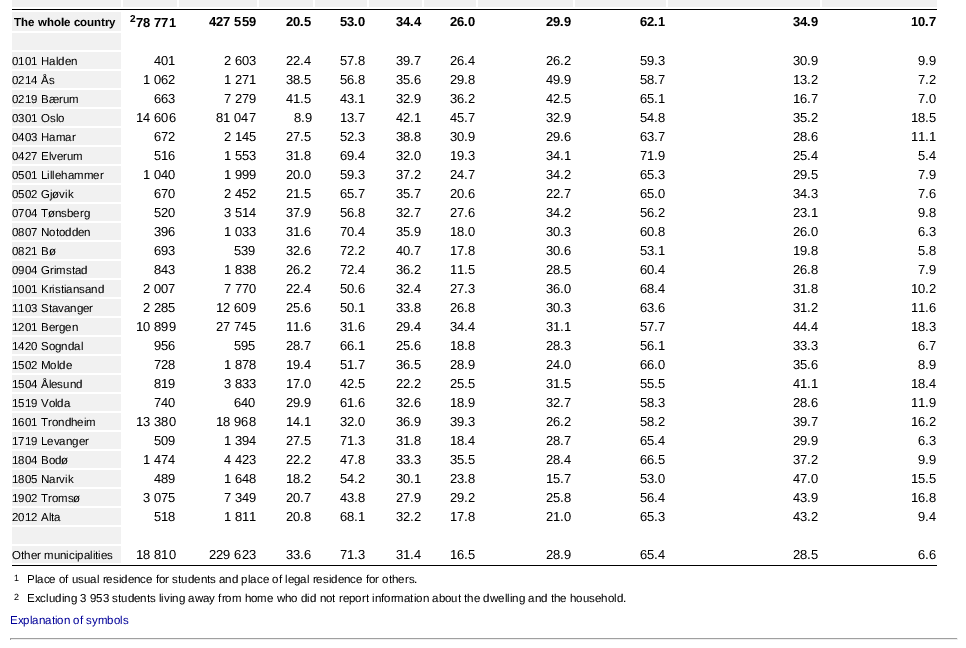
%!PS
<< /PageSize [966 648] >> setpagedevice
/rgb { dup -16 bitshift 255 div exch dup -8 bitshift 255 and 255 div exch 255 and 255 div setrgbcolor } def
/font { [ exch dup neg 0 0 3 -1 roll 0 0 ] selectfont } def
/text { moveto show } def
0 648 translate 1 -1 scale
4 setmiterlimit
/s1 { /LiberationSans-Bold 11.52 font 16#000000 rgb } def
/s2 { /LiberationSans-Bold 10 font 16#000000 rgb } def
/s3 { /LiberationSans-Bold 13 font 16#000000 rgb } def
/s4 { /LiberationSans-Regular 11.52 font 16#000000 rgb } def
/s5 { /LiberationSans-Regular 13 font 16#000000 rgb } def
/s6 { /LiberationSans-Regular 9 font 16#000000 rgb } def
/s7 { /LiberationSans-Regular 11.52 font 16#000099 rgb } def
16#FFFFFF rgb
0 0 966 648 rectfill
16#F1F1F1 rgb
12 0 109 7 rectfill
123 0 54 7 rectfill
179 0 78 7 rectfill
668 0 152 7 rectfill
822 0 115 7 rectfill
259 0 54 7 rectfill
315 0 52 7 rectfill
369 0 53 7 rectfill
424 0 52 7 rectfill
478 0 95 7 rectfill
575 0 91 7 rectfill
16#000000 rgb
12 9 925 1 rectfill
16#F1F1F1 rgb
12 12 109 19 rectfill
s1
(The whole country) 14 26 text
s2
(2) 130 22 text
s3
(78 771) 136 27 text
(427 559) 209 26 text
(20.5) 286 26 text
(53.0) 340 26 text
(34.4) 396 26 text
(26.0) 450 26 text
(29.9) 546 26 text
(62.1) 640 26 text
(34.9) 793 26 text
(10.7) 911 26 text
16#F1F1F1 rgb
12 33 109 17 rectfill
12 52 109 17 rectfill
s4
(0101 Halden) 12 65 text
s5
(401) 154 65 text
(2 603) 224 65 text
(22.4) 286 65 text
(57.8) 340 65 text
(39.7) 396 65 text
(26.4) 450 65 text
(26.2) 546 65 text
(59.3) 640 65 text
(30.9) 793 65 text
(9.9) 918 65 text
16#F1F1F1 rgb
12 71 109 17 rectfill
s4
(0214 Ås) 12 84 text
s5
(1 062) 143 84 text
(1 271) 224 84 text
(38.5) 286 84 text
(56.8) 340 84 text
(35.6) 396 84 text
(29.8) 450 84 text
(49.9) 546 84 text
(58.7) 640 84 text
(13.2) 793 84 text
(7.2) 918 84 text
16#F1F1F1 rgb
12 90 109 17 rectfill
s4
(0219 Bærum) 12 103 text
s5
(663) 154 103 text
(7 279) 224 103 text
(41.5) 286 103 text
(43.1) 340 103 text
(32.9) 396 103 text
(36.2) 450 103 text
(42.5) 546 103 text
(65.1) 640 103 text
(16.7) 793 103 text
(7.0) 918 103 text
16#F1F1F1 rgb
12 109 109 17 rectfill
s4
(0301 Oslo) 12 122 text
s5
(14 606) 136 122 text
(81 047) 216 122 text
(8.9) 294 122 text
(13.7) 340 122 text
(42.1) 396 122 text
(45.7) 450 122 text
(32.9) 546 122 text
(54.8) 640 122 text
(35.2) 793 122 text
(18.5) 911 122 text
16#F1F1F1 rgb
12 128 109 17 rectfill
s4
(0403 Hamar) 12 141 text
s5
(672) 154 141 text
(2 145) 224 141 text
(27.5) 286 141 text
(52.3) 340 141 text
(38.8) 396 141 text
(30.9) 450 141 text
(29.6) 546 141 text
(63.7) 640 141 text
(28.6) 793 141 text
(11.1) 911 141 text
16#F1F1F1 rgb
12 147 109 17 rectfill
s4
(0427 Elverum) 12 160 text
s5
(516) 154 160 text
(1 553) 224 160 text
(31.8) 286 160 text
(69.4) 340 160 text
(32.0) 396 160 text
(19.3) 450 160 text
(34.1) 546 160 text
(71.9) 640 160 text
(25.4) 793 160 text
(5.4) 918 160 text
16#F1F1F1 rgb
12 166 109 17 rectfill
s4
(0501 Lillehammer) 12 179 text
s5
(1 040) 143 179 text
(1 999) 224 179 text
(20.0) 286 179 text
(59.3) 340 179 text
(37.2) 396 179 text
(24.7) 450 179 text
(34.2) 546 179 text
(65.3) 640 179 text
(29.5) 793 179 text
(7.9) 918 179 text
16#F1F1F1 rgb
12 185 109 17 rectfill
s4
(0502 Gjøvik) 12 198 text
s5
(670) 154 198 text
(2 452) 224 198 text
(21.5) 286 198 text
(65.7) 340 198 text
(35.7) 396 198 text
(20.6) 450 198 text
(22.7) 546 198 text
(65.0) 640 198 text
(34.3) 793 198 text
(7.6) 918 198 text
16#F1F1F1 rgb
12 204 109 17 rectfill
s4
(0704 Tønsberg) 12 217 text
s5
(520) 154 217 text
(3 514) 224 217 text
(37.9) 286 217 text
(56.8) 340 217 text
(32.7) 396 217 text
(27.6) 450 217 text
(34.2) 546 217 text
(56.2) 640 217 text
(23.1) 793 217 text
(9.8) 918 217 text
16#F1F1F1 rgb
12 223 109 17 rectfill
s4
(0807 Notodden) 12 236 text
s5
(396) 154 236 text
(1 033) 224 236 text
(31.6) 286 236 text
(70.4) 340 236 text
(35.9) 396 236 text
(18.0) 450 236 text
(30.3) 546 236 text
(60.8) 640 236 text
(26.0) 793 236 text
(6.3) 918 236 text
16#F1F1F1 rgb
12 242 109 17 rectfill
s4
(0821 Bø) 12 255 text
s5
(693) 154 255 text
(539) 234 255 text
(32.6) 286 255 text
(72.2) 340 255 text
(40.7) 396 255 text
(17.8) 450 255 text
(30.6) 546 255 text
(53.1) 640 255 text
(19.8) 793 255 text
(5.8) 918 255 text
16#F1F1F1 rgb
12 261 109 17 rectfill
s4
(0904 Grimstad) 12 274 text
s5
(843) 154 274 text
(1 838) 224 274 text
(26.2) 286 274 text
(72.4) 340 274 text
(36.2) 396 274 text
(11.5) 450 274 text
(28.5) 546 274 text
(60.4) 640 274 text
(26.8) 793 274 text
(7.9) 918 274 text
16#F1F1F1 rgb
12 280 109 17 rectfill
s4
(1001 Kristiansand) 12 293 text
s5
(2 007) 143 293 text
(7 770) 224 293 text
(22.4) 286 293 text
(50.6) 340 293 text
(32.4) 396 293 text
(27.3) 450 293 text
(36.0) 546 293 text
(68.4) 640 293 text
(31.8) 793 293 text
(10.2) 911 293 text
16#F1F1F1 rgb
12 299 109 17 rectfill
s4
(1103 Stavanger) 12 312 text
s5
(2 285) 143 312 text
(12 609) 216 312 text
(25.6) 286 312 text
(50.1) 340 312 text
(33.8) 396 312 text
(26.8) 450 312 text
(30.3) 546 312 text
(63.6) 640 312 text
(31.2) 793 312 text
(11.6) 911 312 text
16#F1F1F1 rgb
12 318 109 17 rectfill
s4
(1201 Bergen) 12 331 text
s5
(10 899) 136 331 text
(27 745) 216 331 text
(11.6) 286 331 text
(31.6) 340 331 text
(29.4) 396 331 text
(34.4) 450 331 text
(31.1) 546 331 text
(57.7) 640 331 text
(44.4) 793 331 text
(18.3) 911 331 text
16#F1F1F1 rgb
12 337 109 17 rectfill
s4
(1420 Sogndal) 12 350 text
s5
(956) 154 350 text
(595) 234 350 text
(28.7) 286 350 text
(66.1) 340 350 text
(25.6) 396 350 text
(18.8) 450 350 text
(28.3) 546 350 text
(56.1) 640 350 text
(33.3) 793 350 text
(6.7) 918 350 text
16#F1F1F1 rgb
12 356 109 17 rectfill
s4
(1502 Molde) 12 369 text
s5
(728) 154 369 text
(1 878) 224 369 text
(19.4) 286 369 text
(51.7) 340 369 text
(36.5) 396 369 text
(28.9) 450 369 text
(24.0) 546 369 text
(66.0) 640 369 text
(35.6) 793 369 text
(8.9) 918 369 text
16#F1F1F1 rgb
12 375 109 17 rectfill
s4
(1504 Ålesund) 12 388 text
s5
(819) 154 388 text
(3 833) 224 388 text
(17.0) 286 388 text
(42.5) 340 388 text
(22.2) 396 388 text
(25.5) 450 388 text
(31.5) 546 388 text
(55.5) 640 388 text
(41.1) 793 388 text
(18.4) 911 388 text
16#F1F1F1 rgb
12 394 109 17 rectfill
s4
(1519 Volda) 12 407 text
s5
(740) 154 407 text
(640) 234 407 text
(29.9) 286 407 text
(61.6) 340 407 text
(32.6) 396 407 text
(18.9) 450 407 text
(32.7) 546 407 text
(58.3) 640 407 text
(28.6) 793 407 text
(11.9) 911 407 text
16#F1F1F1 rgb
12 413 109 17 rectfill
s4
(1601 Trondheim) 12 426 text
s5
(13 380) 136 426 text
(18 968) 216 426 text
(14.1) 286 426 text
(32.0) 340 426 text
(36.9) 396 426 text
(39.3) 450 426 text
(26.2) 546 426 text
(58.2) 640 426 text
(39.7) 793 426 text
(16.2) 911 426 text
16#F1F1F1 rgb
12 432 109 17 rectfill
s4
(1719 Levanger) 12 445 text
s5
(509) 154 445 text
(1 394) 224 445 text
(27.5) 286 445 text
(71.3) 340 445 text
(31.8) 396 445 text
(18.4) 450 445 text
(28.7) 546 445 text
(65.4) 640 445 text
(29.9) 793 445 text
(6.3) 918 445 text
16#F1F1F1 rgb
12 451 109 17 rectfill
s4
(1804 Bodø) 12 464 text
s5
(1 474) 143 464 text
(4 423) 224 464 text
(22.2) 286 464 text
(47.8) 340 464 text
(33.3) 396 464 text
(35.5) 450 464 text
(28.4) 546 464 text
(66.5) 640 464 text
(37.2) 793 464 text
(9.9) 918 464 text
16#F1F1F1 rgb
12 470 109 17 rectfill
s4
(1805 Narvik) 12 483 text
s5
(489) 154 483 text
(1 648) 224 483 text
(18.2) 286 483 text
(54.2) 340 483 text
(30.1) 396 483 text
(23.8) 450 483 text
(15.7) 546 483 text
(53.0) 640 483 text
(47.0) 793 483 text
(15.5) 911 483 text
16#F1F1F1 rgb
12 489 109 17 rectfill
s4
(1902 Tromsø) 12 502 text
s5
(3 075) 143 502 text
(7 349) 224 502 text
(20.7) 286 502 text
(43.8) 340 502 text
(27.9) 396 502 text
(29.2) 450 502 text
(25.8) 546 502 text
(56.4) 640 502 text
(43.9) 793 502 text
(16.8) 911 502 text
16#F1F1F1 rgb
12 508 109 17 rectfill
s4
(2012 Alta) 12 521 text
s5
(518) 154 521 text
(1 811) 224 521 text
(20.8) 286 521 text
(68.1) 340 521 text
(32.2) 396 521 text
(17.8) 450 521 text
(21.0) 546 521 text
(65.3) 640 521 text
(43.2) 793 521 text
(9.4) 918 521 text
16#F1F1F1 rgb
12 527 109 17 rectfill
12 546 109 17 rectfill
s4
(Other municipalities) 12 559 text
s5
(18 810) 136 559 text
(229 623) 209 559 text
(33.6) 286 559 text
(71.3) 340 559 text
(31.4) 396 559 text
(16.5) 450 559 text
(28.9) 546 559 text
(65.4) 640 559 text
(28.5) 793 559 text
(6.6) 918 559 text
12 565 925 1 rectfill
s6
(1) 14 581 text
s4
(Place of usual residence for students and place of legal residence for others.) 27 583 text
s6
(2) 14 600 text
s4
(Excluding 3 953 students living away from home who did not report information about the dwelling and the household.) 27 602 text
s7
(Explanation of symbols) 10 624 text
16#9F9F9F rgb
10 638 948 1 rectfill
16#EEEEEE rgb
957 638 1 2 rectfill
10 639 948 1 rectfill
16#9F9F9F rgb
10 638 1 2 rectfill
showpage
